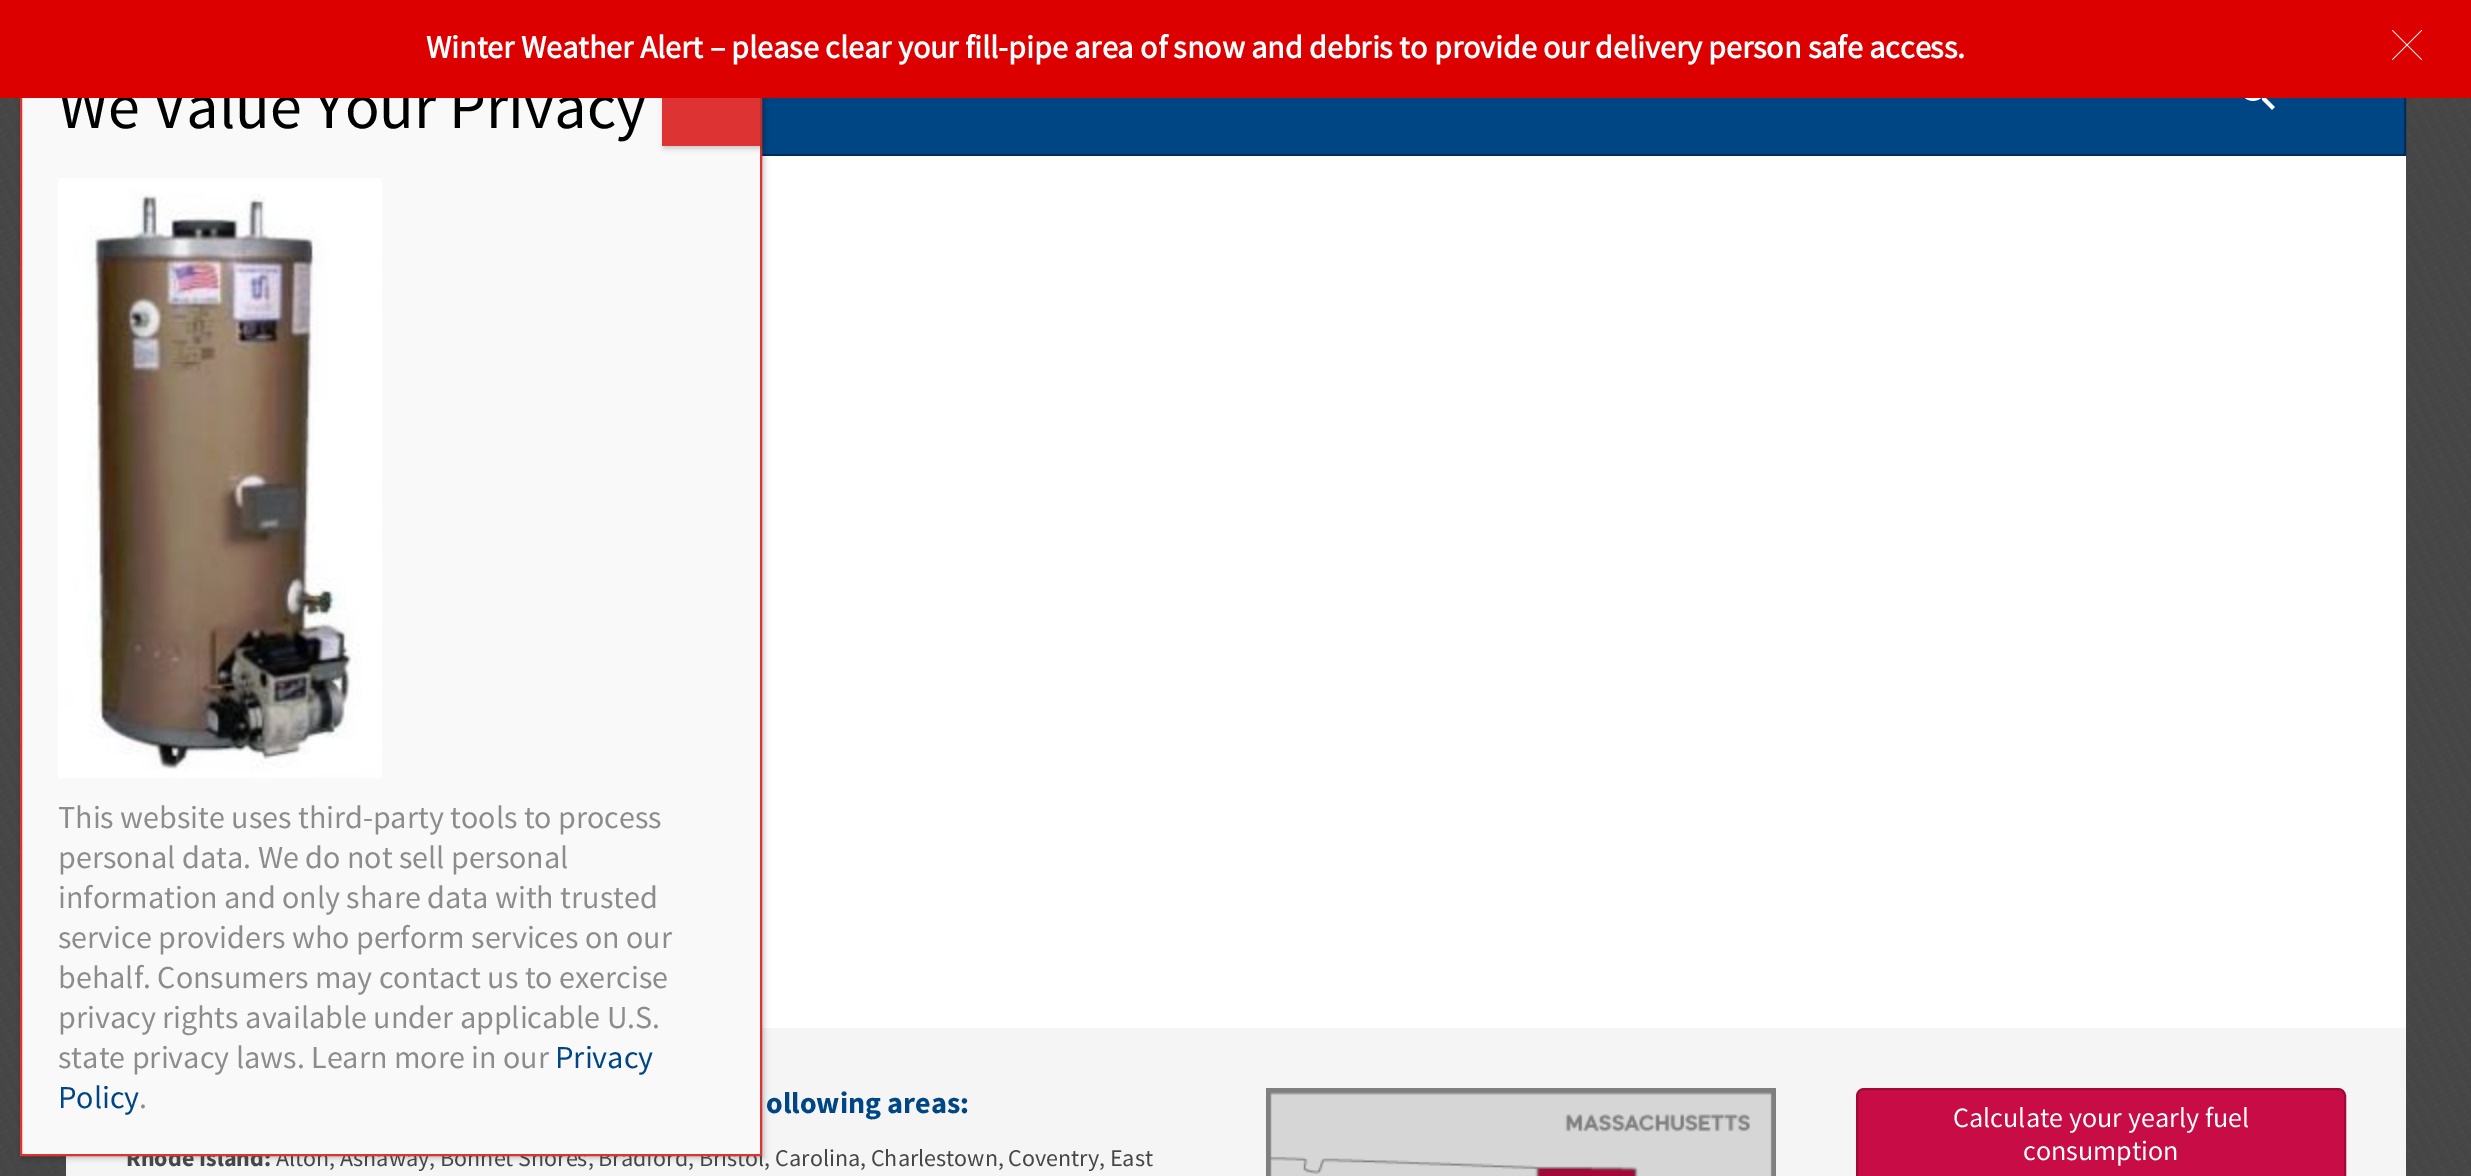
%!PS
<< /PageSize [2471 1176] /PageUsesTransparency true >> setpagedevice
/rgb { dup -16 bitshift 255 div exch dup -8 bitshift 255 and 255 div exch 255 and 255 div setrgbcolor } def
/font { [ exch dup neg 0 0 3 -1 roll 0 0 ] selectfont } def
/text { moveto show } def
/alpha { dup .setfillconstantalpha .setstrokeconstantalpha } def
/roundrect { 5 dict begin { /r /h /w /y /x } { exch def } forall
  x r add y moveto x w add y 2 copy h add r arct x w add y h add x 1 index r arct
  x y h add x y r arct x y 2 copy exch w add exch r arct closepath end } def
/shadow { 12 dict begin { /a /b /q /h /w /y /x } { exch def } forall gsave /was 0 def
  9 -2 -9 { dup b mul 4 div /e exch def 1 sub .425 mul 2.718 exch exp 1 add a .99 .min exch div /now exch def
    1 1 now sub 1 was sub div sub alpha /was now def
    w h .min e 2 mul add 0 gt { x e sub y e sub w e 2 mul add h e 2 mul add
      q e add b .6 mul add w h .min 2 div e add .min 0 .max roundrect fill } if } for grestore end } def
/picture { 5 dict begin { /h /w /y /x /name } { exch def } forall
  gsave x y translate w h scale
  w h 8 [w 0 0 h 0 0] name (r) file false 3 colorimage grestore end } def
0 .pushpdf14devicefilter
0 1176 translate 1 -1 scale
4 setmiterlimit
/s1 { /SourceSansPro-Bold 24 font 16#464646 rgb } def
/s2 { /SourceSansPro-Regular 24 font 16#464646 rgb } def
/s3 { /SourceSansPro-Regular 64 font 16#000000 rgb } def
/s4 { /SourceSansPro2-Bold 32 font 16#FFFFFF rgb } def
/s5 { /SourceSansPro-Regular 32 font 16#8C8C8C rgb } def
/s6 { /SourceSansPro-Regular 32 font 16#004684 rgb } def
/s7 { /SourceSansPro-Bold 30 font 16#004684 rgb } def
/s8 { /SourceSansPro-Regular 28 font 16#FFFFFF rgb } def
16#FFFFFF rgb
0 0 2471 1176 rectfill
(pic1.raw) 0 98 2471 1078 picture
16#004684 rgb
762 98 1642 56 rectfill
16#002D55 rgb
2 setlinewidth
67 41 2338 114 rectstroke
16#FFFFFF rgb
762 156 1644 872 rectfill
16#F5F5F5 rgb
66 1028 2340 148 rectfill
16#020202 rgb
22 38 742 1120 0 3 0.23 shadow
s1
(Rhode Island:) 126 1166 text
s2
(Alton, Ashaway, Bonnet Shores, Bradford, Bristol, Carolina, Charlestown, Coventry, East) 276 1166 text
16#F9F9F9 rgb
22 98 738 1056 rectfill
16#DD3333 rgb
21 37 740 1118 rectstroke
s3
(We Value Your Privacy) 58 128 text
16#020202 rgb
664 40 98 108 0 3 0.23 shadow
16#DD0000 rgb
0 0 2471 98 rectfill
s4
(Winter Weather Alert – please clear your fill-pipe area of snow and debris to provide our delivery person safe access.) 426 58 text
(pic2.raw) 2392 30 30 30 picture
(pic3.raw) 2245 98 30 12 picture
16#DD3333 rgb
662 98 98 48 rectfill
(pic4.raw) 58 178 324 600 picture
s5
(This website uses third-party tools to process) 58 828 text
(personal data. We do not sell personal) 58 868 text
(information and only share data with trusted) 58 908 text
(service providers who perform services on our) 58 948 text
(behalf. Consumers may contact us to exercise) 58 988 text
(privacy rights available under applicable U.S.) 58 1028 text
(state privacy laws. Learn more in our) 58 1068 text
s6
(Privacy) 555 1068 text
(Policy) 58 1108 text
s5
(.) 139 1108 text
s7
(ollowing areas:) 766 1113 text
(pic5.raw) 1266 1088 510 88 picture
16#C70C46 rgb
1857 1089 488 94 7 roundrect gsave fill grestore
16#A10A38 rgb
stroke
s8
(Calculate your yearly fuel) 1953 1127 text
(consumption) 2023 1160 text
.poppdf14devicefilter showpage
